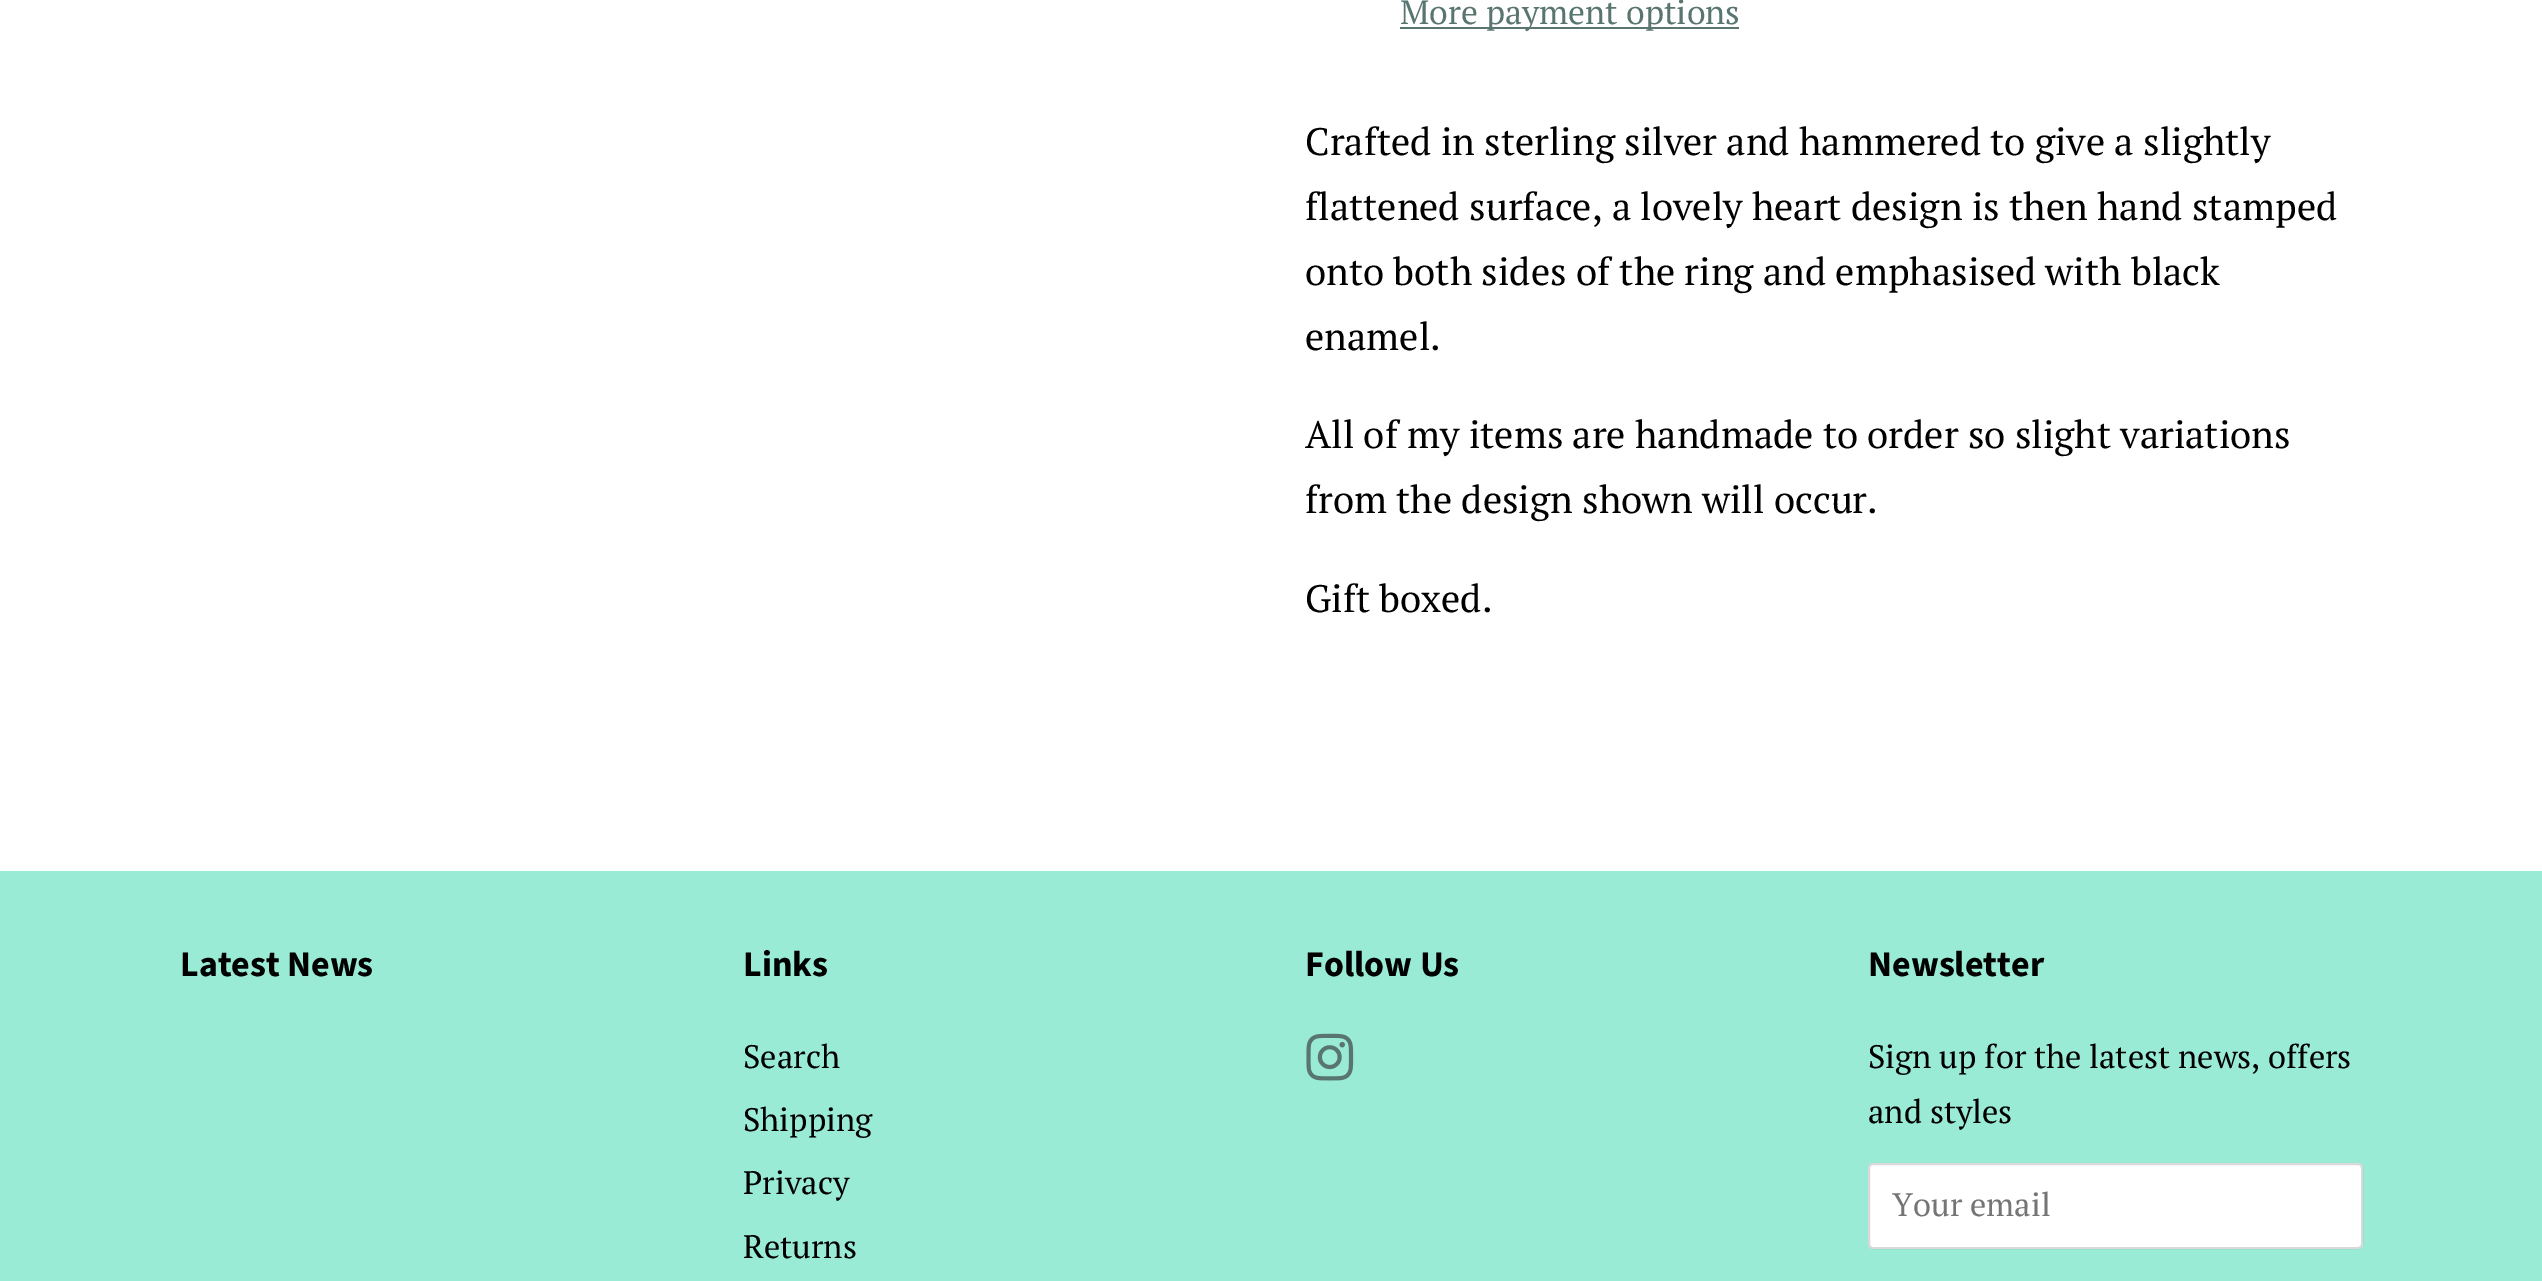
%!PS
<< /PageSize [2542 1281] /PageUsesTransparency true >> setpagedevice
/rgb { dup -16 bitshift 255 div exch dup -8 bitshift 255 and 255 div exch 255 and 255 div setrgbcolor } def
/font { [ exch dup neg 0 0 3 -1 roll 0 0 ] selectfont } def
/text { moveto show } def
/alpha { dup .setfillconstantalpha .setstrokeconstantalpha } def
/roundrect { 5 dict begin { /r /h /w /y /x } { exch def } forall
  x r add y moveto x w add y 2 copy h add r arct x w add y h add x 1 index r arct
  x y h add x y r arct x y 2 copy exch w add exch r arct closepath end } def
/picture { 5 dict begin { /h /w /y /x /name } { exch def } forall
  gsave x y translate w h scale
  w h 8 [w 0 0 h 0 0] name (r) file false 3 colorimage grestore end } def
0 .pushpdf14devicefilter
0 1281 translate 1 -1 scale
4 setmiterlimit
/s1 { /PTSerif-Regular 33.75 font 16#59756F rgb } def
/s2 { /PTSerif-Regular 38.25 font 16#000000 rgb } def
/s3 { /SourceSansPro-Bold 36 font 16#000000 rgb } def
/s4 { /PTSerif-Regular 32.5 font 16#000000 rgb } def
/s5 { /PTSerif-Regular 32.5 font 16#757575 rgb } def
16#FFFFFF rgb
0 0 2542 1281 rectfill
16#59756F rgb
1400 27 339 2 rectfill
s1
(More payment options) 1400 24 text
s2
(Crafted in sterling silver and hammered to give a slightly) 1305 155 text
(flattened surface, a lovely heart design is then hand stamped) 1305 220 text
(onto both sides of the ring and emphasised with black) 1305 285 text
(enamel.) 1305 350 text
(All of my items are handmade to order so slight variations) 1305 448 text
(from the design shown will occur.) 1305 513 text
(Gift boxed.) 1305 612 text
16#9AEBD5 rgb
0 871 2542 410 rectfill
s3
(Latest News) 180 976 text
(Links) 743 976 text
s4
(Search) 743 1068 text
(Shipping) 743 1131 text
(Privacy) 743 1194 text
(Returns) 743 1258 text
s3
(Follow Us) 1305 976 text
(pic1.raw) 1306 1033 48 48 picture
(Newsletter) 1868 976 text
s4
(Sign up for the latest news, offers) 1868 1068 text
(and styles) 1868 1123 text
16#FFFFFF rgb
1868 1163 495 86 5 roundrect fill
0.15 alpha
16#000000 rgb
2 setlinewidth
1869 1164 493 84 4 roundrect stroke
1 alpha
s5
(Your email) 1892 1216 text
.poppdf14devicefilter showpage
